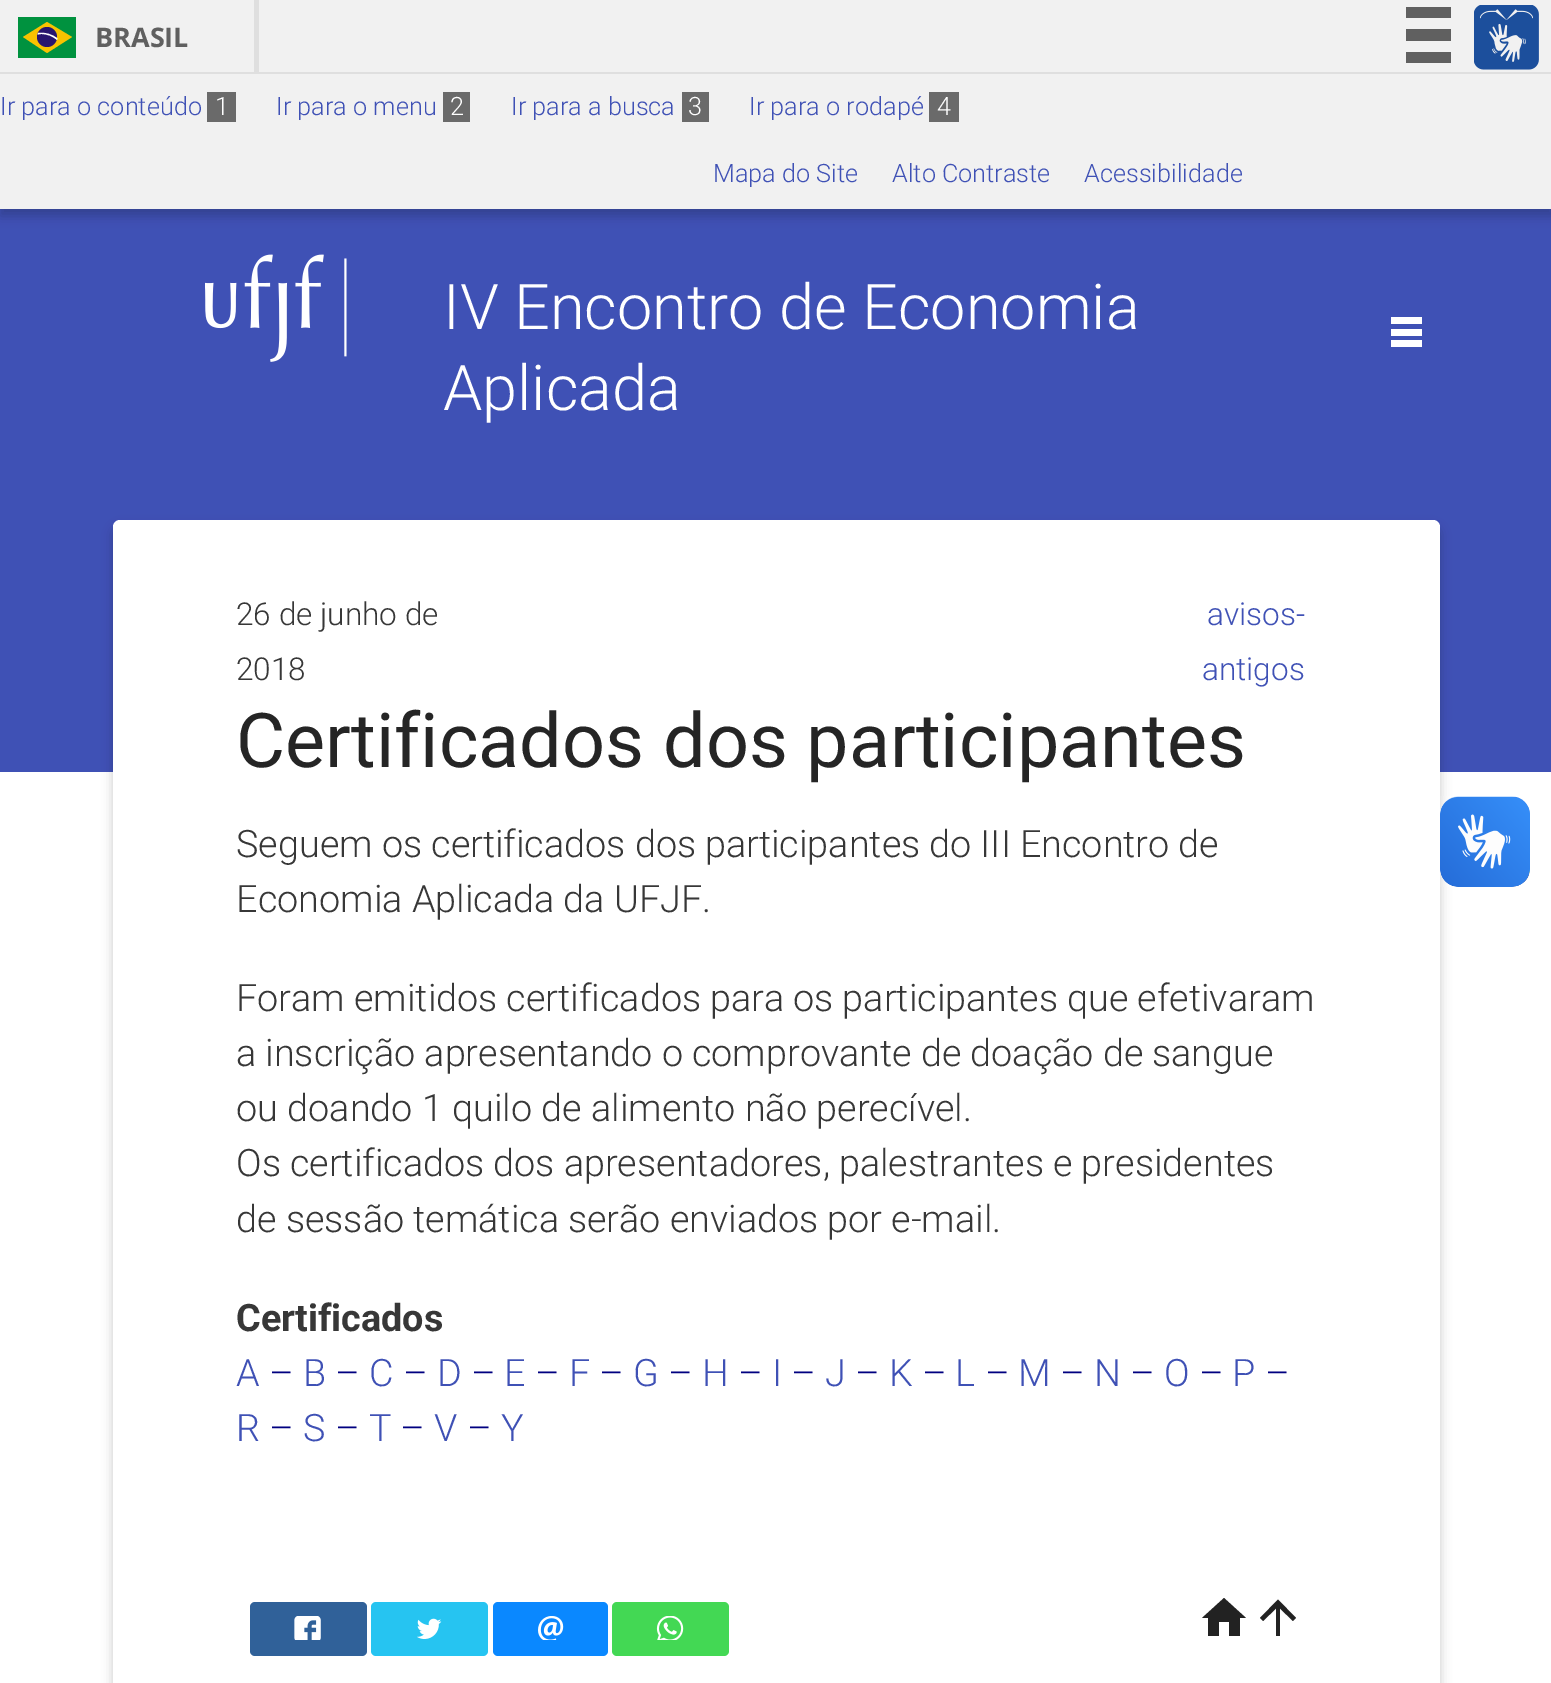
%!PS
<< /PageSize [1551 1683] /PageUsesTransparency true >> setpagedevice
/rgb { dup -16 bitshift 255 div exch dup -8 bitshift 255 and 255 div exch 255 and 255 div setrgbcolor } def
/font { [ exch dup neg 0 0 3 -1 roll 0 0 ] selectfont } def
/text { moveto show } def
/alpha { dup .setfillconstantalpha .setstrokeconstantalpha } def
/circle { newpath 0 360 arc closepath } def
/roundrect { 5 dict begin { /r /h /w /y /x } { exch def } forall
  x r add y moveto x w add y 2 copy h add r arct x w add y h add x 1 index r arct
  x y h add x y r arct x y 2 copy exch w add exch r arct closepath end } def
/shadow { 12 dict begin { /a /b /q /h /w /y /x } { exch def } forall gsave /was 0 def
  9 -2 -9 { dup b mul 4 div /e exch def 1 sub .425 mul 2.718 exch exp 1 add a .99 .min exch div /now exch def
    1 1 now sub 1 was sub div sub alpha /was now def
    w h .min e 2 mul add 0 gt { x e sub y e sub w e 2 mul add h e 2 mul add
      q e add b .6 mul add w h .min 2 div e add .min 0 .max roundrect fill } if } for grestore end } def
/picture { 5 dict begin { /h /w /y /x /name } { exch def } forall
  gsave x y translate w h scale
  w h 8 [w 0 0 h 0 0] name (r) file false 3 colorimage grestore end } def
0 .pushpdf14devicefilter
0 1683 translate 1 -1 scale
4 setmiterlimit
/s1 { /OpenSans-Bold 27 font 16#606060 rgb } def
/s2 { /Roboto-Light 25.25 font 16#3F51B5 rgb } def
/s3 { /Roboto-Light 25.25 font 16#FFFFFF rgb } def
/s4 { /Roboto-Light 63 font 16#FFFFFF rgb } def
/s5 { /Roboto-Light 31.5 font 16#373737 rgb } def
/s6 { /Roboto-Light 31.5 font 16#3F51B5 rgb } def
/s7 { /Roboto-Regular 75.6 font 16#252525 rgb } def
/s8 { /Roboto-Light 37.8 font 16#373737 rgb } def
/s9 { /Roboto-Bold 37.8 font 16#373737 rgb } def
/s10 { /Roboto-Light 37.8 font 16#3F51B5 rgb } def
/s11 { /Roboto-Light 37.8 font 16#000080 rgb } def
16#FFFFFF rgb
0 0 1551 1683 rectfill
16#3F51B5 rgb
0 209 1551 563 rectfill
16#000000 rgb
0 7 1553 209 0 5.5 0.2 shadow
16#F1F1F1 rgb
0 0 1551 72 rectfill
16#DFDFDF rgb
0 72 1551 2 rectfill
254 0 5 72 rectfill
16#00923F rgb
18 17 58 41 rectfill
16#F8C300 rgb
47 22 moveto 23 37 lineto 47 53 lineto 72 37 lineto closepath fill
16#28166F rgb
47 37 10 circle fill
16#FFFFFF rgb
41 34 moveto 47 34 52.5 36 57 40 curveto 57.5 38.5 lineto 52 34 45 32 38 33 curveto 37.5 34.5 lineto closepath fill
s1
(BRASIL) 95 47 text
1406 7 45 11 rectfill
1406 29 45 12 rectfill
1406 52 45 11 rectfill
(pic1.raw) 1474 5 65 65 picture
16#F1F1F1 rgb
0 74 1551 135 rectfill
s2
(Ir para o conteúdo) 0 115 text
16#6A6A6A rgb
207 92 29 30 rectfill
s3
(1) 215 115 text
s2
(Ir para o menu) 276 115 text
16#6A6A6A rgb
443 92 27 30 rectfill
s3
(2) 450 115 text
s2
(Ir para a busca) 511 115 text
16#6A6A6A rgb
682 92 27 30 rectfill
s3
(3) 688 115 text
s2
(Ir para o rodapé) 749 115 text
16#6A6A6A rgb
929 92 30 30 rectfill
s3
(4) 937 115 text
s2
(Mapa do Site) 713 182 text
(Alto Contraste) 892 182 text
(Acessibilidade) 1084 182 text
(pic2.raw) 205 254 142 108 picture
s4
(IV Encontro de Economia) 443 329 text
(Aplicada) 443 410 text
16#000000 rgb
113 527 1327 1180 7 5.5 0.2 shadow
16#FFFFFF rgb
113 520 1327 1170 7 roundrect fill
s5
(26 de junho de) 236 625 text
(2018) 236 680 text
s6
(avisos-) 1207 625 text
(antigos) 1202 680 text
s7
(Certificados dos participantes) 236 767 text
/Roboto-Light 37.8 font
16#373737 rgb
236 857 moveto -0.25 0 32 (Seguem os certificados dos participantes do III Encontro de) widthshow
(Economia Aplicada da UFJF.) 236 912 text
236 1011 moveto -0.25 0 32 (Foram emitidos certificados para os participantes que efetivaram) widthshow
236 1066 moveto -0.25 0 32 (a inscrição apresentando o comprovante de doação de sangue) widthshow
(ou doando 1 quilo de alimento não perecível.) 236 1121 text
236 1176 moveto -0.25 0 32 (Os certificados dos apresentadores, palestrantes e presidentes) widthshow
236 1232 moveto -0.25 0 32 (de sessão temática serão enviados por e-mail.) widthshow
s9
(Certificados) 236 1331 text
s10
(A) 236 1386 text
s11
(–) 269 1386 text
s10
(B) 303 1386 text
s11
(–) 335 1386 text
s10
(C) 369 1386 text
s11
(–) 403 1386 text
s10
(D) 437 1386 text
s11
(–) 471 1386 text
s10
(E) 504 1386 text
s11
(–) 535 1386 text
s10
(F) 569 1386 text
s11
(–) 599 1386 text
s10
(G) 633 1386 text
s11
(–) 668 1386 text
s10
(H) 702 1386 text
s11
(–) 738 1386 text
s10
(I) 772 1386 text
s11
(–) 791 1386 text
s10
(J) 825 1386 text
s11
(–) 855 1386 text
s10
(K) 889 1386 text
s11
(–) 922 1386 text
s10
(L) 955 1386 text
s11
(–) 985 1386 text
s10
(M) 1018 1386 text
s11
(–) 1060 1386 text
s10
(N) 1094 1386 text
s11
(–) 1130 1386 text
s10
(O) 1164 1386 text
s11
(–) 1199 1386 text
s10
(P) 1232 1386 text
s11
(–) 1265 1386 text
s10
(R) 236 1441 text
s11
(–) 269 1441 text
s10
(S) 303 1441 text
s11
(–) 335 1441 text
s10
(T) 369 1441 text
s11
(–) 400 1441 text
s10
(V) 434 1441 text
s11
(–) 467 1441 text
s10
(Y) 501 1441 text
16#306199 rgb
250 1602 117 54 5 roundrect fill
(pic3.raw) 294 1616 27 24 picture
16#26C4F1 rgb
371 1602 117 54 5 roundrect fill
(pic4.raw) 417 1618 25 21 picture
16#0A88FF rgb
493 1602 115 54 5 roundrect fill
(pic5.raw) 538 1616 26 24 picture
16#43D854 rgb
612 1602 117 54 5 roundrect fill
(pic6.raw) 656 1616 28 24 picture
16#222222 rgb
1219 1636 moveto 1208 1636 lineto 1208 1618 lineto 1202 1618 lineto 1224 1598 lineto 1246 1618 lineto 1240 1618 lineto 1240 1636 lineto 1229 1636 lineto 1229 1622 lineto 1219 1622 lineto closepath fill
1260 1618 moveto 1278 1599.5 lineto 1296 1618 lineto 1293 1621 lineto 1280 1608.5 lineto 1280 1636 lineto 1276 1636 lineto 1276 1608.5 lineto 1263 1621 lineto closepath fill
16#FFFFFF rgb
1391 329 31 7 rectfill
1391 317 31 7 rectfill
1391 340 31 7 rectfill
(pic7.raw) 1440 796 90 91 picture
(pic8.raw) 1440 797 90 90 picture
.poppdf14devicefilter showpage
